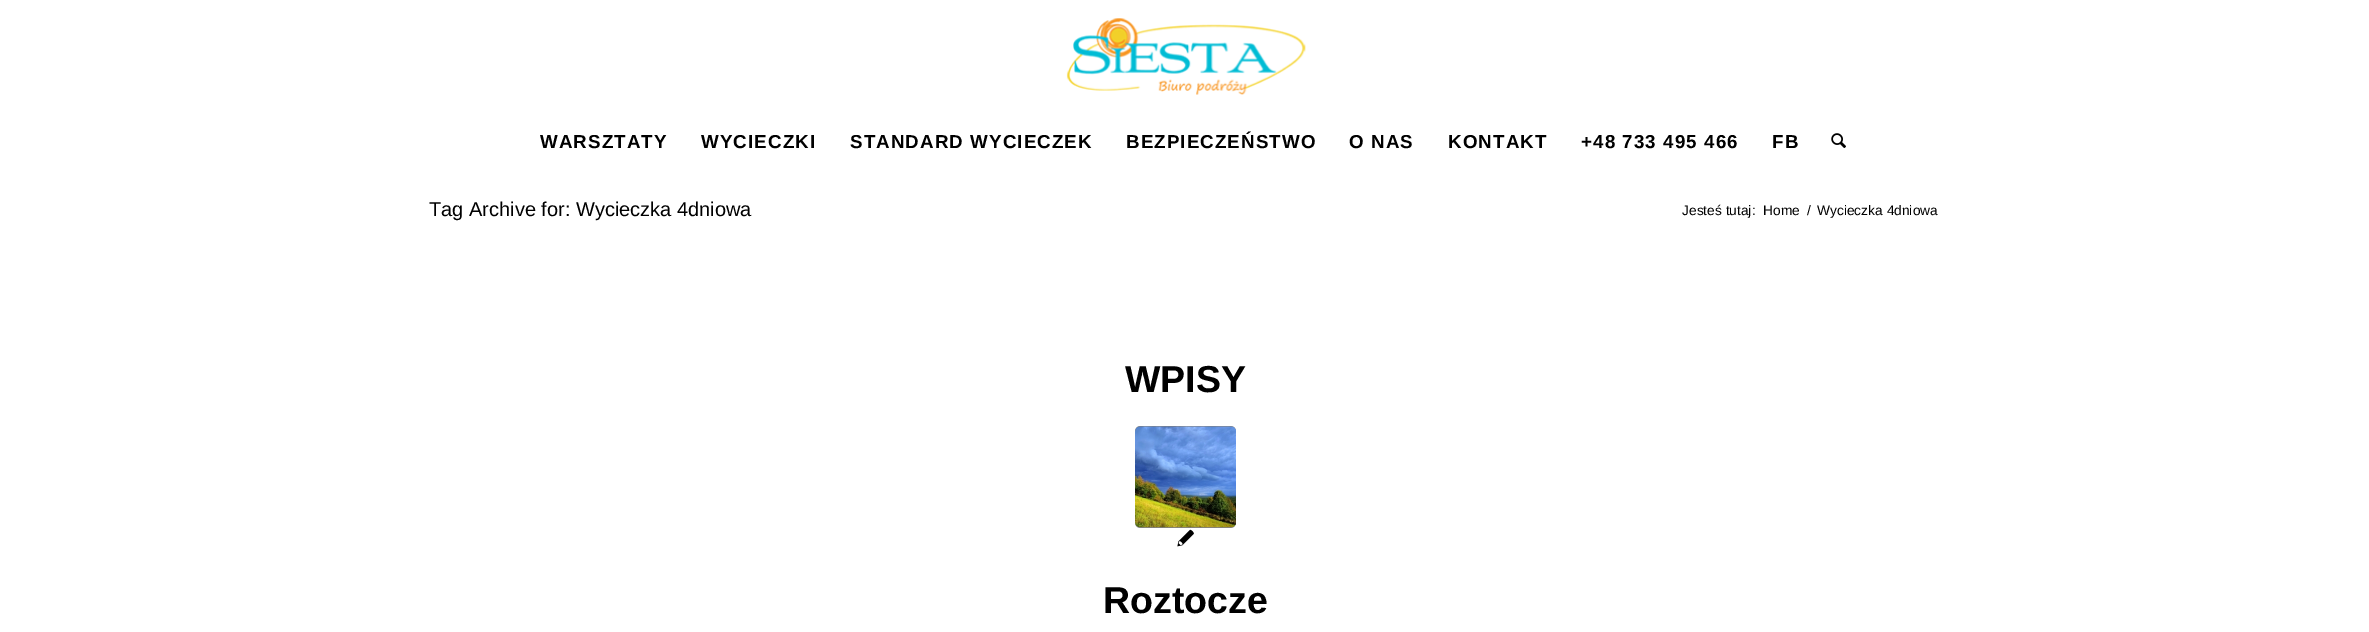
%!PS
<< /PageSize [2369 632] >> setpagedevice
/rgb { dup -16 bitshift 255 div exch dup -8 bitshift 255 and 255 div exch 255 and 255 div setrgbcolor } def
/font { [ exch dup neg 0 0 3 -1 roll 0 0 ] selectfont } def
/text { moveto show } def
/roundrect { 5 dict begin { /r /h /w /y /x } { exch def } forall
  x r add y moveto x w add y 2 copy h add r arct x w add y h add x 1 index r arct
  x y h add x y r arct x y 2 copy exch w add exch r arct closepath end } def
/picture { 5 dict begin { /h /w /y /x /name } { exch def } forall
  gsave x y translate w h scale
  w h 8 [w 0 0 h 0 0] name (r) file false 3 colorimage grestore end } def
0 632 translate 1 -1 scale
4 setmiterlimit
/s1 { /LiberationSans-Regular 20 font 16#000000 rgb } def
/s2 { /LiberationSans-Regular 13.75 font 16#000000 rgb } def
/s3 { /LiberationSans-Bold 37.5 font 16#000000 rgb } def
16#FFFFFF rgb
0 0 2369 632 rectfill
(pic1.raw) 1066 18 240 77 picture
/LiberationSans-Bold 18.75 font
16#000000 rgb
540 148 moveto 1.1 0 (WARSZTATY) ashow
701 148 moveto 1.1 0 (WYCIECZKI) ashow
850 148 moveto 1.1 0 (STANDARD WYCIECZEK) ashow
1126 148 moveto 1.1 0 (BEZPIECZEŃSTWO) ashow
1349 148 moveto 1.1 0 (O NAS) ashow
1448 148 moveto 1.1 0 (KONTAKT) ashow
1581 148 moveto 1.1 0 (+48 733 495 466) ashow
1772 148 moveto 1.1 0 (FB) ashow
(pic2.raw) 1831 133 15 15 picture
s1
(Tag Archive for: Wycieczka 4dniowa) 429 216 text
s2
(Jesteś tutaj:) 1682 215 text
(Home) 1763 215 text
(/) 1807 215 text
(Wycieczka 4dniowa) 1817 215 text
s3
(WPISY) 1125 392 text
16#808080 rgb
1135 426 101 102 5 roundrect fill
(pic3.raw) 1135 426 101 102 picture
(pic4.raw) 1177 529 17 18 picture
s3
(Roztocze) 1103 613 text
showpage
